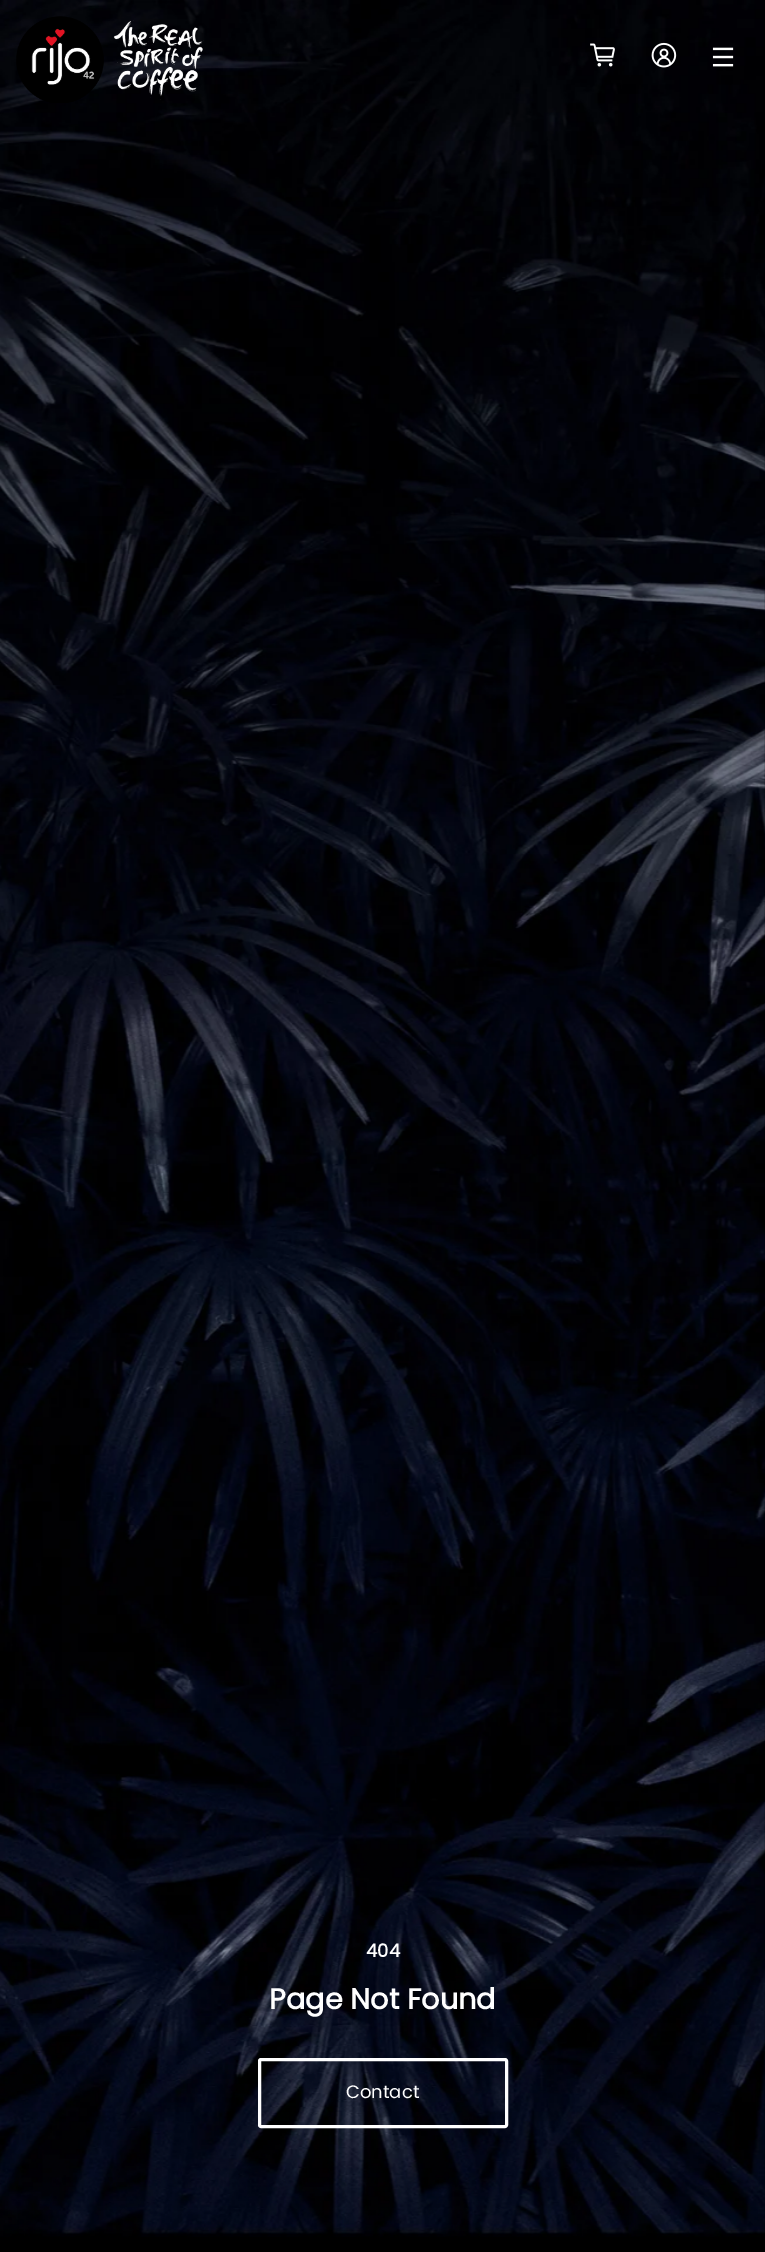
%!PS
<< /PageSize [765 2252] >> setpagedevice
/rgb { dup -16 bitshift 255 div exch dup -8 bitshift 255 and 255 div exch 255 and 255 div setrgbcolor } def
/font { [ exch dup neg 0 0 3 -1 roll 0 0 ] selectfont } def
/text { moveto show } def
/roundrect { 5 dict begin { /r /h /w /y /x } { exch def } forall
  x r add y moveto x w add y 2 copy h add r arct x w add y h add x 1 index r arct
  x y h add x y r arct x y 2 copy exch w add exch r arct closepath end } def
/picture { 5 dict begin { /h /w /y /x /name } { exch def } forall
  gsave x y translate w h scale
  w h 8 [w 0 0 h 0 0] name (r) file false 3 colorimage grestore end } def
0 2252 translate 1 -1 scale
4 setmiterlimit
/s1 { /Poppins-Bold 18 font 16#FFFFFF rgb } def
/s2 { /Poppins-Bold 28.75 font 16#FFFFFF rgb } def
/s3 { /Poppins-Regular 18 font 16#FFFFFF rgb } def
16#000000 rgb
0 0 765 2252 rectfill
(pic5.raw) 0 0 765 2237 picture
(pic1.raw) 16 16 188 87 picture
(pic2.raw) 590 43 25 24 picture
(pic3.raw) 651 42 26 26 picture
(pic4.raw) 712 47 22 20 picture
s1
(404) 366 1957 text
s2
(Page Not Found) 269 2009 text
3 setlinewidth
259.5 2059.5 247 67 1.5 roundrect stroke
s3
(Contact) 346 2098 text
showpage
